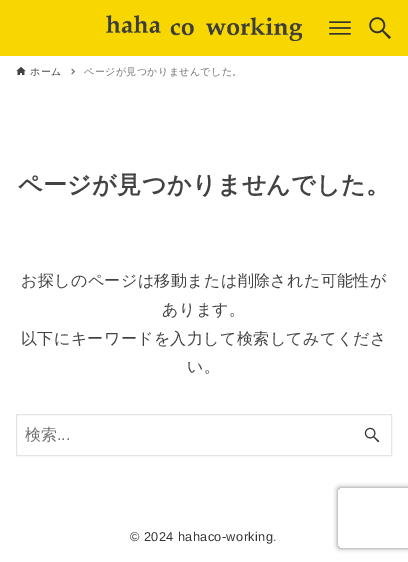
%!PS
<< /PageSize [408 562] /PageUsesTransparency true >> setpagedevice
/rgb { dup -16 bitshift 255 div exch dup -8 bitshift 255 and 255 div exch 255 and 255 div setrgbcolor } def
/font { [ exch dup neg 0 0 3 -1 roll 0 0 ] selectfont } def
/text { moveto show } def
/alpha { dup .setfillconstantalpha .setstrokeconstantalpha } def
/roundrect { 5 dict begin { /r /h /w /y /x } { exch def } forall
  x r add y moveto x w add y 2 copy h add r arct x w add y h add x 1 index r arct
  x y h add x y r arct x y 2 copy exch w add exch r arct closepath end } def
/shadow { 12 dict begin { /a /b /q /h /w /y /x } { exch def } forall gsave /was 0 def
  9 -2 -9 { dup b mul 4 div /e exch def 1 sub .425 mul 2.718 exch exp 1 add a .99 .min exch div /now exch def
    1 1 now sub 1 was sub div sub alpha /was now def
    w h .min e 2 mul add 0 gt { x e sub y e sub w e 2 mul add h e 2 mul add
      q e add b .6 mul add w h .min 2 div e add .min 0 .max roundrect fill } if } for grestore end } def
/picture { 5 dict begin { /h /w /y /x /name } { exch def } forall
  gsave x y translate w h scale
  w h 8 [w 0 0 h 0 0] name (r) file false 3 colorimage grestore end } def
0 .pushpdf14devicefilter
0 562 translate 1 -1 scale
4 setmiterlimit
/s1 { /WenQuanYiZenHei-Medium 16 font 16#717171 rgb } def
/s2 { /LiberationSans-Regular 16 font 16#717171 rgb } def
16#FFFFFF rgb
0 0 408 562 rectfill
16#F8D700 rgb
0 0 408 56 rectfill
(pic1.raw) 106 15 196 26 picture
(pic2.raw) 329 21 22 14 picture
(pic3.raw) 369 17 22 22 picture
(pic4.raw) 16 67 10 9 picture
/WenQuanYiZenHei-Medium 10 font
16#424242 rgb
30 75 moveto 0.4 0 (ホーム) ashow
16#717171 rgb
72 68.5 moveto 75 71.5 lineto 74 72 lineto 71.5 69.5 lineto closepath fill
74 71 moveto 75 71.5 lineto 72 74.5 lineto 71.5 73.5 lineto closepath fill
84 75 moveto 0.4 0 (ページが見つかりませんでした。) ashow
/WenQuanYiZenHei-Bold 24 font
16#424242 rgb
18 193 moveto 0.4 0 (ページが見つかりませんでした。) ashow
/WenQuanYiZenHei-Medium 16 font
21 286 moveto 0.4 0 (お探しのページは移動または削除された可能性が) ashow
162 315 moveto 0.4 0 (あります。) ashow
21 344 moveto 0.4 0 (以下にキーワードを入力して検索してみてくださ) ashow
187 372 moveto 0.4 0 (い。) ashow
16#E4E4E4 rgb
16.5 414.5 375 41 rectstroke
s1
(検索) 25 440 text
s2
(...) 57 440 text
(pic5.raw) 364 427 16 16 picture
/LiberationSans-Regular 12.75 font
16#333333 rgb
130 541 moveto 0.4 0 (© 2024 hahaco-working.) ashow
gsave
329 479 moveto 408 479 lineto 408 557 lineto 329 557 lineto closepath 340 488 moveto 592 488 lineto 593 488 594 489 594 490 curveto 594 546 lineto 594 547 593 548 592 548 curveto 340 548 lineto 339 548 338 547 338 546 curveto 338 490 lineto 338 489 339 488 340 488 curveto closepath eoclip newpath
16#808080 rgb
338 488 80 60 2 2.5 1 shadow
grestore
.poppdf14devicefilter showpage
